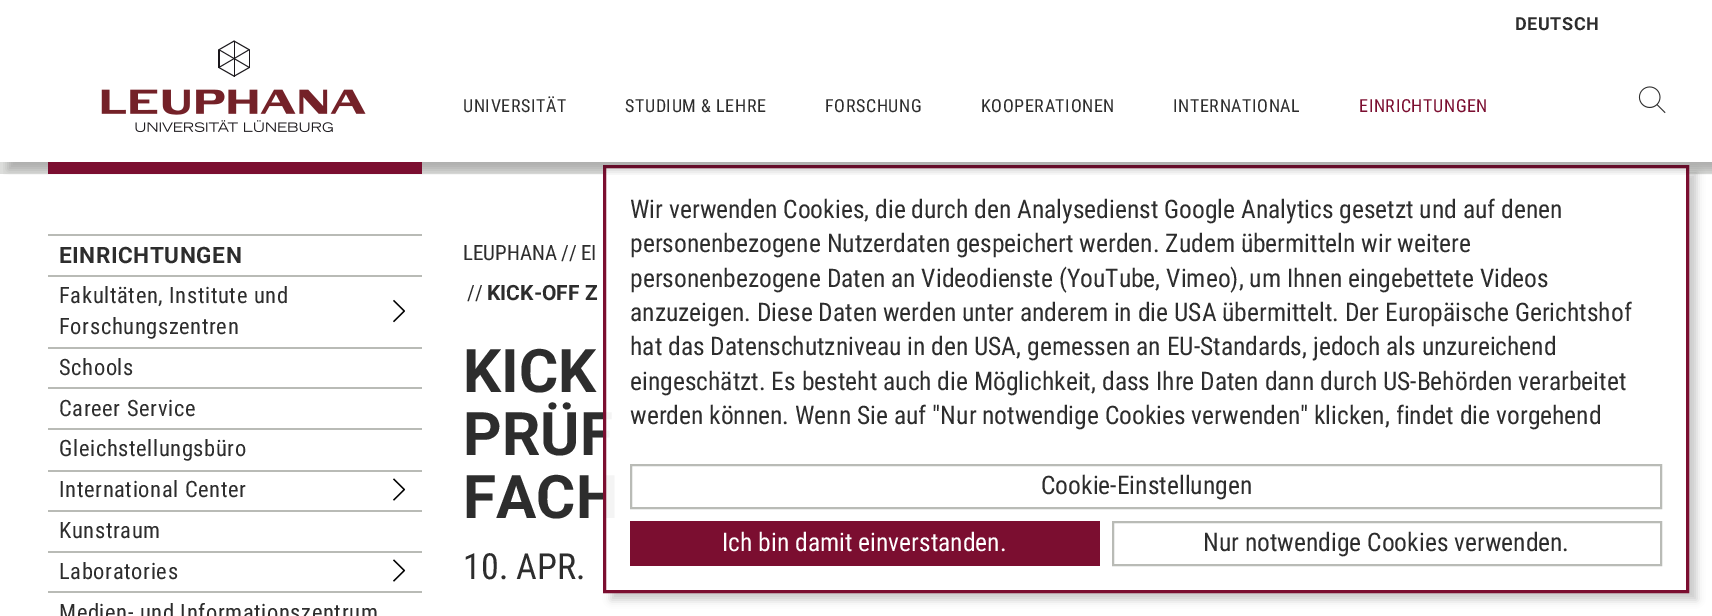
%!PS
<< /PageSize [1712 616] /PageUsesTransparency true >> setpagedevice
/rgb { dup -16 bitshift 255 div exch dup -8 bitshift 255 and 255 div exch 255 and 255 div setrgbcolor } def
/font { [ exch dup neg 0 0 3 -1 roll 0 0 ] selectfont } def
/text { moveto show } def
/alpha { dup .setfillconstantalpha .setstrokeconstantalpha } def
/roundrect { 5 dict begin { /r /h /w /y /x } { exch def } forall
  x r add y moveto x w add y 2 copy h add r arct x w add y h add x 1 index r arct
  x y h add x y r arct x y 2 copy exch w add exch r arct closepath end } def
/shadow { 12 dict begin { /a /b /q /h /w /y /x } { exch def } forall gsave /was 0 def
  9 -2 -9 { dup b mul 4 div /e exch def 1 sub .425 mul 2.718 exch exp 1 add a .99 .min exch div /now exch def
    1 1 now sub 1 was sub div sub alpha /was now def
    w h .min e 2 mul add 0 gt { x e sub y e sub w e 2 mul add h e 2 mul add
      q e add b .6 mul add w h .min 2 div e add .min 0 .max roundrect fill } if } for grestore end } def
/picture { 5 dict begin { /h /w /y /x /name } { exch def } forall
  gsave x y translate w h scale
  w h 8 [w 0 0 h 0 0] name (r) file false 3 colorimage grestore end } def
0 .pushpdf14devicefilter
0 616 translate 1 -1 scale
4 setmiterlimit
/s1 { /Roboto-Bold 60 font 16#2D2D2D rgb } def
/s2 { /RobotoCondensed-Regular 21 font 16#2D2D2D rgb } def
/s3 { /Roboto-Bold 21 font 16#2D2D2D rgb } def
/s4 { /RobotoCondensed-Regular 36 font 16#2D2D2D rgb } def
/s5 { /RobotoCondensed-Regular 25.5 font 16#2D2D2D rgb } def
/s6 { /RobotoCondensed-Regular 25.5 font 16#FFFFFF rgb } def
16#DCDDDB rgb
0 0 1712 616 rectfill
16#FFFFFF rgb
0 0 1712 162 rectfill
0 174 1712 442 rectfill
s1
(PRÜF) 463 455 text
(FACH) 463 518 text
gsave
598 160 moveto 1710 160 lineto 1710 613 lineto 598 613 lineto closepath 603 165 moveto 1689 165 lineto 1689 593 lineto 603 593 lineto closepath eoclip newpath
16#000000 rgb
611 173 1086 427 0 4 0.2 shadow
grestore
0.95 alpha
16#FFFFFF rgb
606 168 1080 350 rectfill
1 alpha
16#7B0E30 rgb
3 setlinewidth
604.5 166.5 1083 425 rectstroke
gsave
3 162 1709 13 rectclip
16#000000 rgb
8 8 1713 162 0 4 0.2 shadow
grestore
/Roboto-Bold 18 font
16#2D2D2D rgb
1515 30 moveto 0.6 0 (DEUTSCH) ashow
(pic1.raw) 101 40 265 93 picture
16#7B0E30 rgb
48 162 374 12 rectfill
/RobotoCondensed-Regular 18 font
16#2D2D2D rgb
463 112 moveto 0.6 0 (UNIVERSITÄT) ashow
625 112 moveto 0.6 0 (STUDIUM & LEHRE) ashow
825 112 moveto 0.6 0 (FORSCHUNG) ashow
981 112 moveto 0.6 0 (KOOPERATIONEN) ashow
1173 112 moveto 0.6 0 (INTERNATIONAL) ashow
16#7B0E30 rgb
1359 112 moveto 0.6 0 (EINRICHTUNGEN) ashow
(pic2.raw) 1638 86 28 28 picture
16#B9BBB6 rgb
48 234 374 2 rectfill
/Roboto-Bold 22.5 font
16#2D2D2D rgb
59 263 moveto 0.6 0 (EINRICHTUNGEN) ashow
16#B9BBB6 rgb
48 275 374 2 rectfill
/RobotoCondensed-Regular 22.5 font
16#2D2D2D rgb
59 303 moveto 0.6 0 (Fakultäten, Institute und) ashow
59 334 moveto 0.6 0 (Forschungszentren) ashow
(pic3.raw) 393 299 12 24 picture
16#B9BBB6 rgb
48 347 374 2 rectfill
16#2D2D2D rgb
59 375 moveto 0.6 0 (Schools) ashow
16#B9BBB6 rgb
48 387 374 2 rectfill
16#2D2D2D rgb
59 416 moveto 0.6 0 (Career Service) ashow
16#B9BBB6 rgb
48 428 374 2 rectfill
16#2D2D2D rgb
59 456 moveto 0.6 0 (Gleichstellungsbüro) ashow
16#B9BBB6 rgb
48 470 374 2 rectfill
16#2D2D2D rgb
59 497 moveto 0.6 0 (International Center) ashow
(pic4.raw) 393 478 13 23 picture
16#B9BBB6 rgb
48 510 374 2 rectfill
16#2D2D2D rgb
59 538 moveto 0.6 0 (Kunstraum) ashow
16#B9BBB6 rgb
48 551 374 2 rectfill
16#2D2D2D rgb
59 579 moveto 0.6 0 (Laboratories) ashow
(pic4.raw) 393 559 13 23 picture
16#B9BBB6 rgb
48 591 374 2 rectfill
16#2D2D2D rgb
59 620 moveto 0.6 0 (Medien- und Informationszentrum) ashow
s2
(LEUPHANA) 463 260 text
(//) 561 260 text
(EI) 581 260 text
(//) 467 300 text
s3
(KICK-OFF Z) 487 300 text
s1
(KICK) 463 392 text
s4
(10. APR.) 463 579 text
s5
(Wir verwenden Cookies, die durch den Analysedienst Google Analytics gesetzt und auf denen) 630 218 text
(personenbezogene Nutzerdaten gespeichert werden. Zudem übermitteln wir weitere) 630 252 text
(personenbezogene Daten an Videodienste \(YouTube, Vimeo\), um Ihnen eingebettete Videos) 630 287 text
(anzuzeigen. Diese Daten werden unter anderem in die USA übermittelt. Der Europäische Gerichtshof) 630 321 text
(hat das Datenschutzniveau in den USA, gemessen an EU-Standards, jedoch als unzureichend) 630 355 text
(eingeschätzt. Es besteht auch die Möglichkeit, dass Ihre Daten dann durch US-Behörden verarbeitet) 630 390 text
(werden können. Wenn Sie auf "Nur notwendige Cookies verwenden" klicken, findet die vorgehend) 630 424 text
16#B9BBB6 rgb
2 setlinewidth
631 465 1030 43 rectstroke
s5
(Cookie-Einstellungen) 1041 494 text
16#7B0E30 rgb
630 521 470 45 rectfill
s6
(Ich bin damit einverstanden.) 722 551 text
16#B9BBB6 rgb
1113 522 548 43 rectstroke
s5
(Nur notwendige Cookies verwenden.) 1203 551 text
.poppdf14devicefilter showpage
